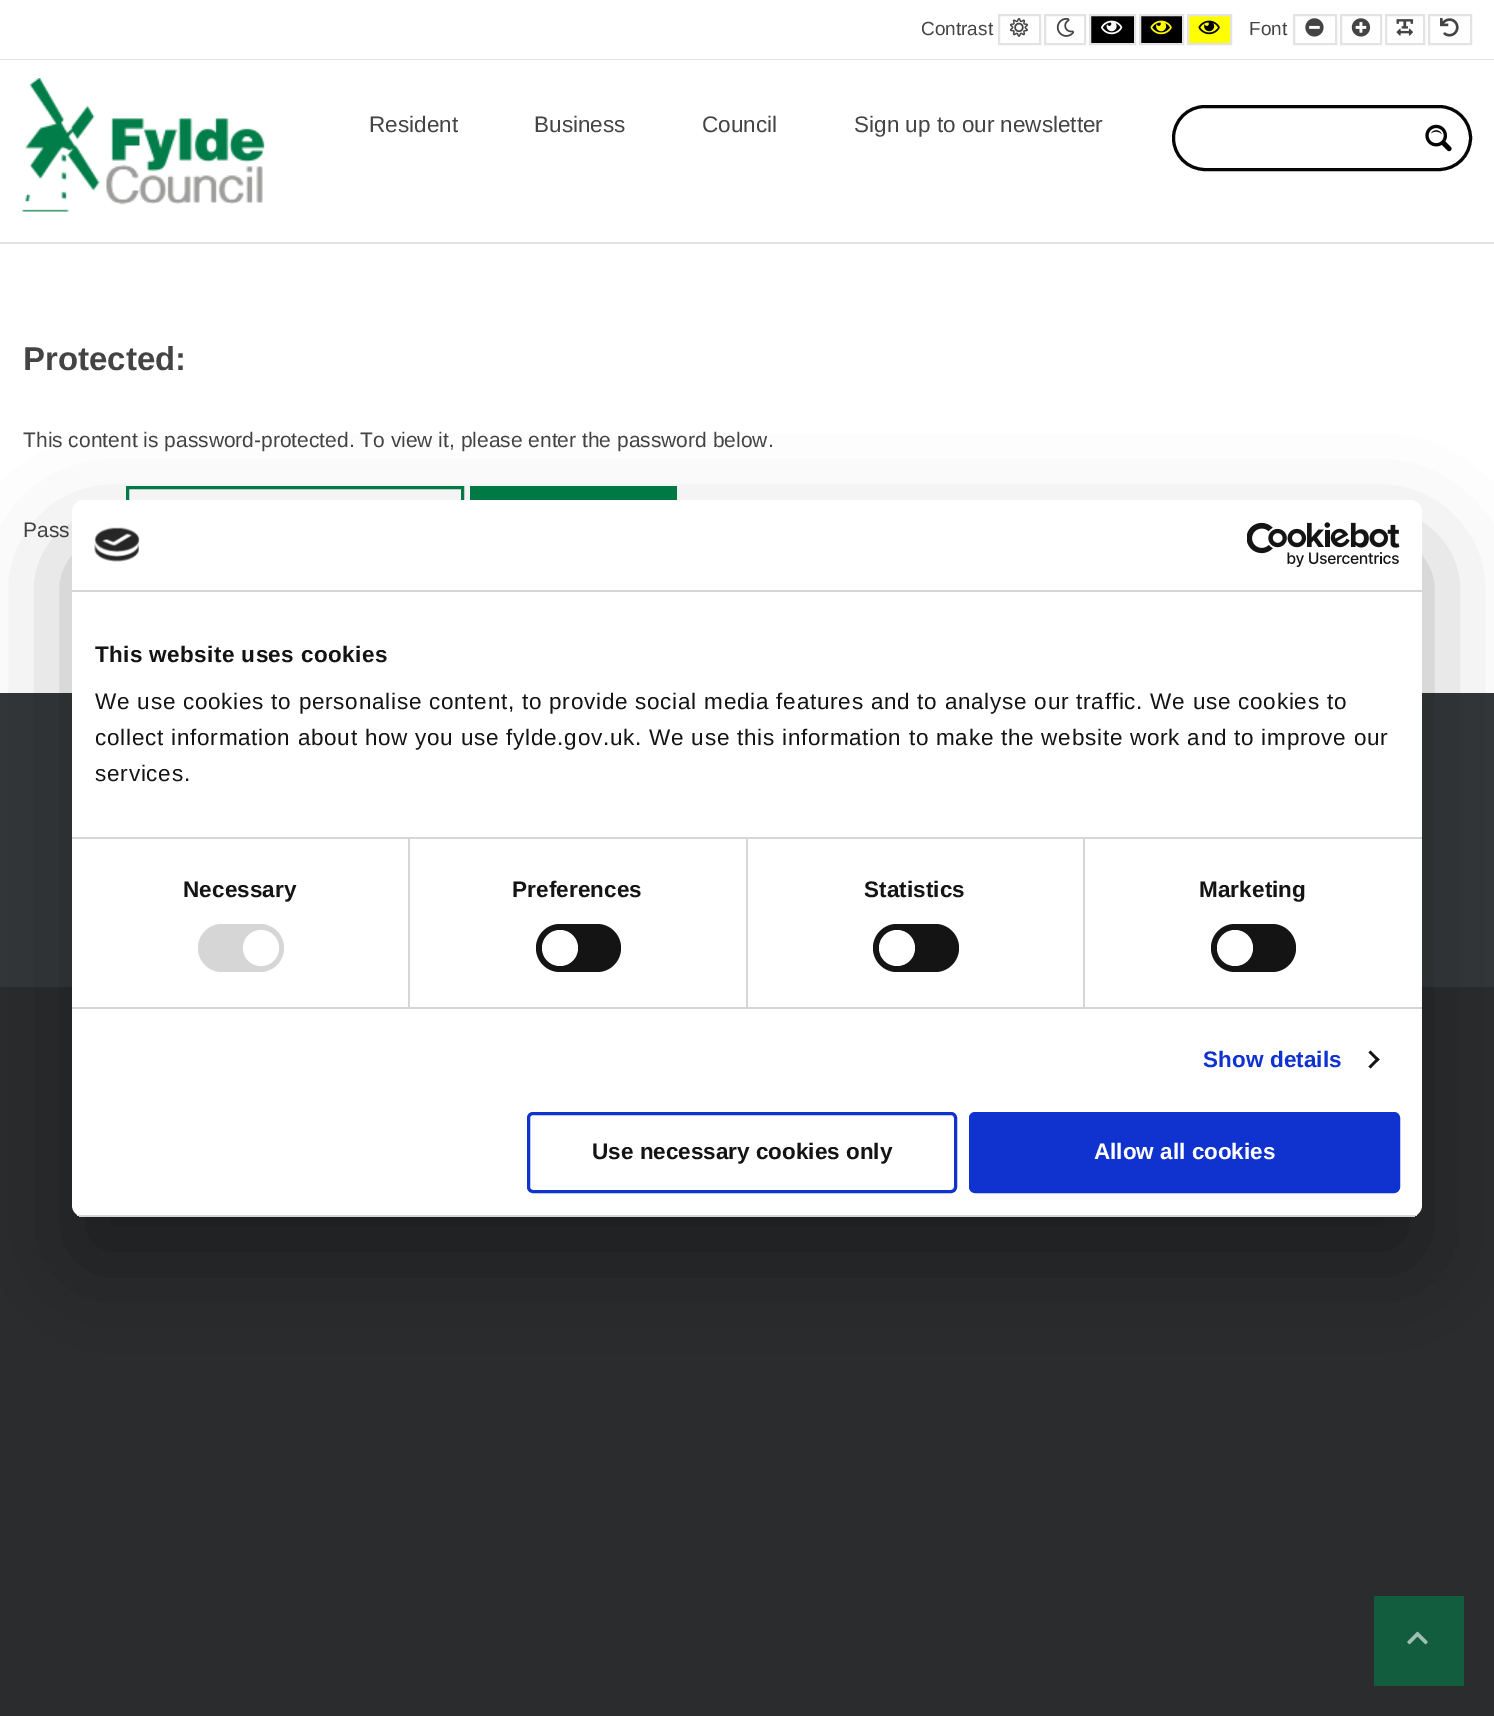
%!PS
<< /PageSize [1494 1716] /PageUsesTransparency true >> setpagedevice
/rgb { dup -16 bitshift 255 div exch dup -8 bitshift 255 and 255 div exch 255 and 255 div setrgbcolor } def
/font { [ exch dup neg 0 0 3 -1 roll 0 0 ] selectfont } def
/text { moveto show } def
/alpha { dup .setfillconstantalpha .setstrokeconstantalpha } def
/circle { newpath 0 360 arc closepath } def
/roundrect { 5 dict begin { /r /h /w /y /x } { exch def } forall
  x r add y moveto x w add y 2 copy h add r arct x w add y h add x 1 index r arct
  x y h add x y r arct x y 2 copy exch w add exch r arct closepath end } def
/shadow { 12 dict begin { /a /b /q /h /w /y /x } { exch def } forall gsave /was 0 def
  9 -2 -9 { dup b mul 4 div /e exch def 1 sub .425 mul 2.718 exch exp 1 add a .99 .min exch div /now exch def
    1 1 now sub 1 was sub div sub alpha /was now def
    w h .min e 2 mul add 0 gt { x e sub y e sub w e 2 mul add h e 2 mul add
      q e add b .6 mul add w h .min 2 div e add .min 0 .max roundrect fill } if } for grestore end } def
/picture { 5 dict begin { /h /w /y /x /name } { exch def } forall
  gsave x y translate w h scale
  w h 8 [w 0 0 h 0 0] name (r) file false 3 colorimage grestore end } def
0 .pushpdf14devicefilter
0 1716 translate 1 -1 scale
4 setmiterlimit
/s1 { /LiberationSans-Regular 19 font 16#444444 rgb } def
/s2 { /LiberationSans-Regular 22.5 font 16#444444 rgb } def
/s3 { /LiberationSans-Bold 33 font 16#444444 rgb } def
/s4 { /LiberationSans-Regular 21 font 16#444444 rgb } def
/s5 { /LiberationSans-Bold 22.5 font 16#141414 rgb } def
/s6 { /LiberationSans-Bold 22.5 font 16#FFFFFF rgb } def
16#2A2C2E rgb
0 0 1494 1716 rectfill
16#FFFFFF rgb
0 0 1494 693 rectfill
16#E3E3E3 rgb
0 242 1494 2 rectfill
0 59 1494 1 rectfill
s1
(Contrast) 921 35 text
16#E3E3E3 rgb
2 setlinewidth
999 15 41 29 rectstroke
(pic1.raw) 1009 18 19 19 picture
1045 15 40 29 rectstroke
(pic2.raw) 1056 18 18 19 picture
16#000000 rgb
1090 15 moveto 1135 15 lineto 1135 44 lineto 1090 44 lineto closepath gsave fill grestore
16#E3E3E3 rgb
stroke
(pic3.raw) 1101 20 22 15 picture
16#000000 rgb
1140 15 moveto 1183 15 lineto 1183 44 lineto 1140 44 lineto closepath gsave fill grestore
16#E3E3E3 rgb
stroke
(pic4.raw) 1150 20 22 15 picture
16#FFFF00 rgb
1188 15 moveto 1231 15 lineto 1231 44 lineto 1188 44 lineto closepath gsave fill grestore
16#E3E3E3 rgb
stroke
(pic5.raw) 1198 20 22 15 picture
s1
(Font) 1249 35 text
16#E3E3E3 rgb
1294 15 42 29 rectstroke
(pic6.raw) 1305 18 19 19 picture
1341 15 40 29 rectstroke
(pic7.raw) 1351 18 20 19 picture
1386 15 38 29 rectstroke
(pic8.raw) 1396 19 18 17 picture
1429 15 42 29 rectstroke
(pic9.raw) 1440 17 19 20 picture
(pic10.raw) 22 78 243 134 picture
s2
(Resident) 369 132 text
(Business) 534 132 text
(Council) 702 132 text
(Sign up to our newsletter) 854 132 text
16#050505 rgb
3 setlinewidth
1173.5 106.5 297 63 31.5 roundrect stroke
(pic11.raw) 1425 124 27 28 picture
s3
(Protected:) 23 370 text
s4
(This content is password-protected. To view it, please enter the password below.) 23 447 text
16#007E48 rgb
470 486 207 14 rectfill
s4
(Pass) 23 537 text
16#007E48 rgb
127.5 487.5 335 87 rectstroke
16#34373A rgb
0 693 1494 294 rectfill
16#115D3E rgb
1374 1596 90 90 rectfill
(pic12.raw) 1407 1631 21 14 picture
16#000000 rgb
72 548 1350 717 12 51 0.3 shadow
16#FFFFFF rgb
72 500 1350 717 12 roundrect fill
16#D6D6D6 rgb
72 590 1350 2 rectfill
(pic13.raw) 94 527 46 35 picture
(pic14.raw) 1247 522 153 45 picture
72 837 1350 2 rectfill
/LiberationSans-Bold 22.5 font
16#141414 rgb
95 662 moveto 0.4 0 (This website uses cookies) ashow
/LiberationSans-Regular 22.5 font
95 709 moveto 0.75 0 (We use cookies to personalise content, to provide social media features and to analyse our traffic. We use cookies to) ashow
95 745 moveto 0.75 0 (collect information about how you use fylde.gov.uk. We use this information to make the website work and to improve our) ashow
95 781 moveto 0.75 0 (services.) ashow
16#D6D6D6 rgb
72 1007 1350 2 rectfill
408 839 2 168 rectfill
/LiberationSans-Bold 22.5 font
16#141414 rgb
183 897 moveto 0.1 0 (Necessary) ashow
16#D6D6D6 rgb
198 924 86 48 24 roundrect fill
16#FFFFFF rgb
261 948 18 circle fill
16#D6D6D6 rgb
746 839 2 168 rectfill
16#141414 rgb
512 897 moveto 0.1 0 (Preferences) ashow
536 924 85 48 24 roundrect fill
16#FFFFFF rgb
560 948 18 circle fill
16#D6D6D6 rgb
1083 839 2 168 rectfill
16#141414 rgb
864 897 moveto 0.1 0 (Statistics) ashow
873 924 86 48 24 roundrect fill
16#FFFFFF rgb
897 948 18 circle fill
16#141414 rgb
1199 897 moveto 0.1 0 (Marketing) ashow
1211 924 85 48 24 roundrect fill
16#FFFFFF rgb
1235 948 18 circle fill
16#1032CF rgb
1203 1067 moveto 0.1 0 (Show details) ashow
16#141414 rgb
1370.5 1050.5 moveto 1379.5 1059.5 lineto 1377.5 1061.5 lineto 1368.5 1052.5 lineto closepath fill
1377.5 1057.5 moveto 1379.5 1059.5 lineto 1370.5 1068.5 lineto 1368.5 1066.5 lineto closepath fill
gsave
72 500 1350 717 12 roundrect clip newpath
16#D6D6D6 rgb
72 1215 1350 2 rectfill
grestore
16#1032CF rgb
528.5 1113.5 427 78 4.5 roundrect stroke
s5
(Use necessary cookies only) 592 1159 text
16#1032CF rgb
970.5 1113.5 428 78 4.5 roundrect gsave fill grestore
stroke
s6
(Allow all cookies) 1094 1159 text
.poppdf14devicefilter showpage
